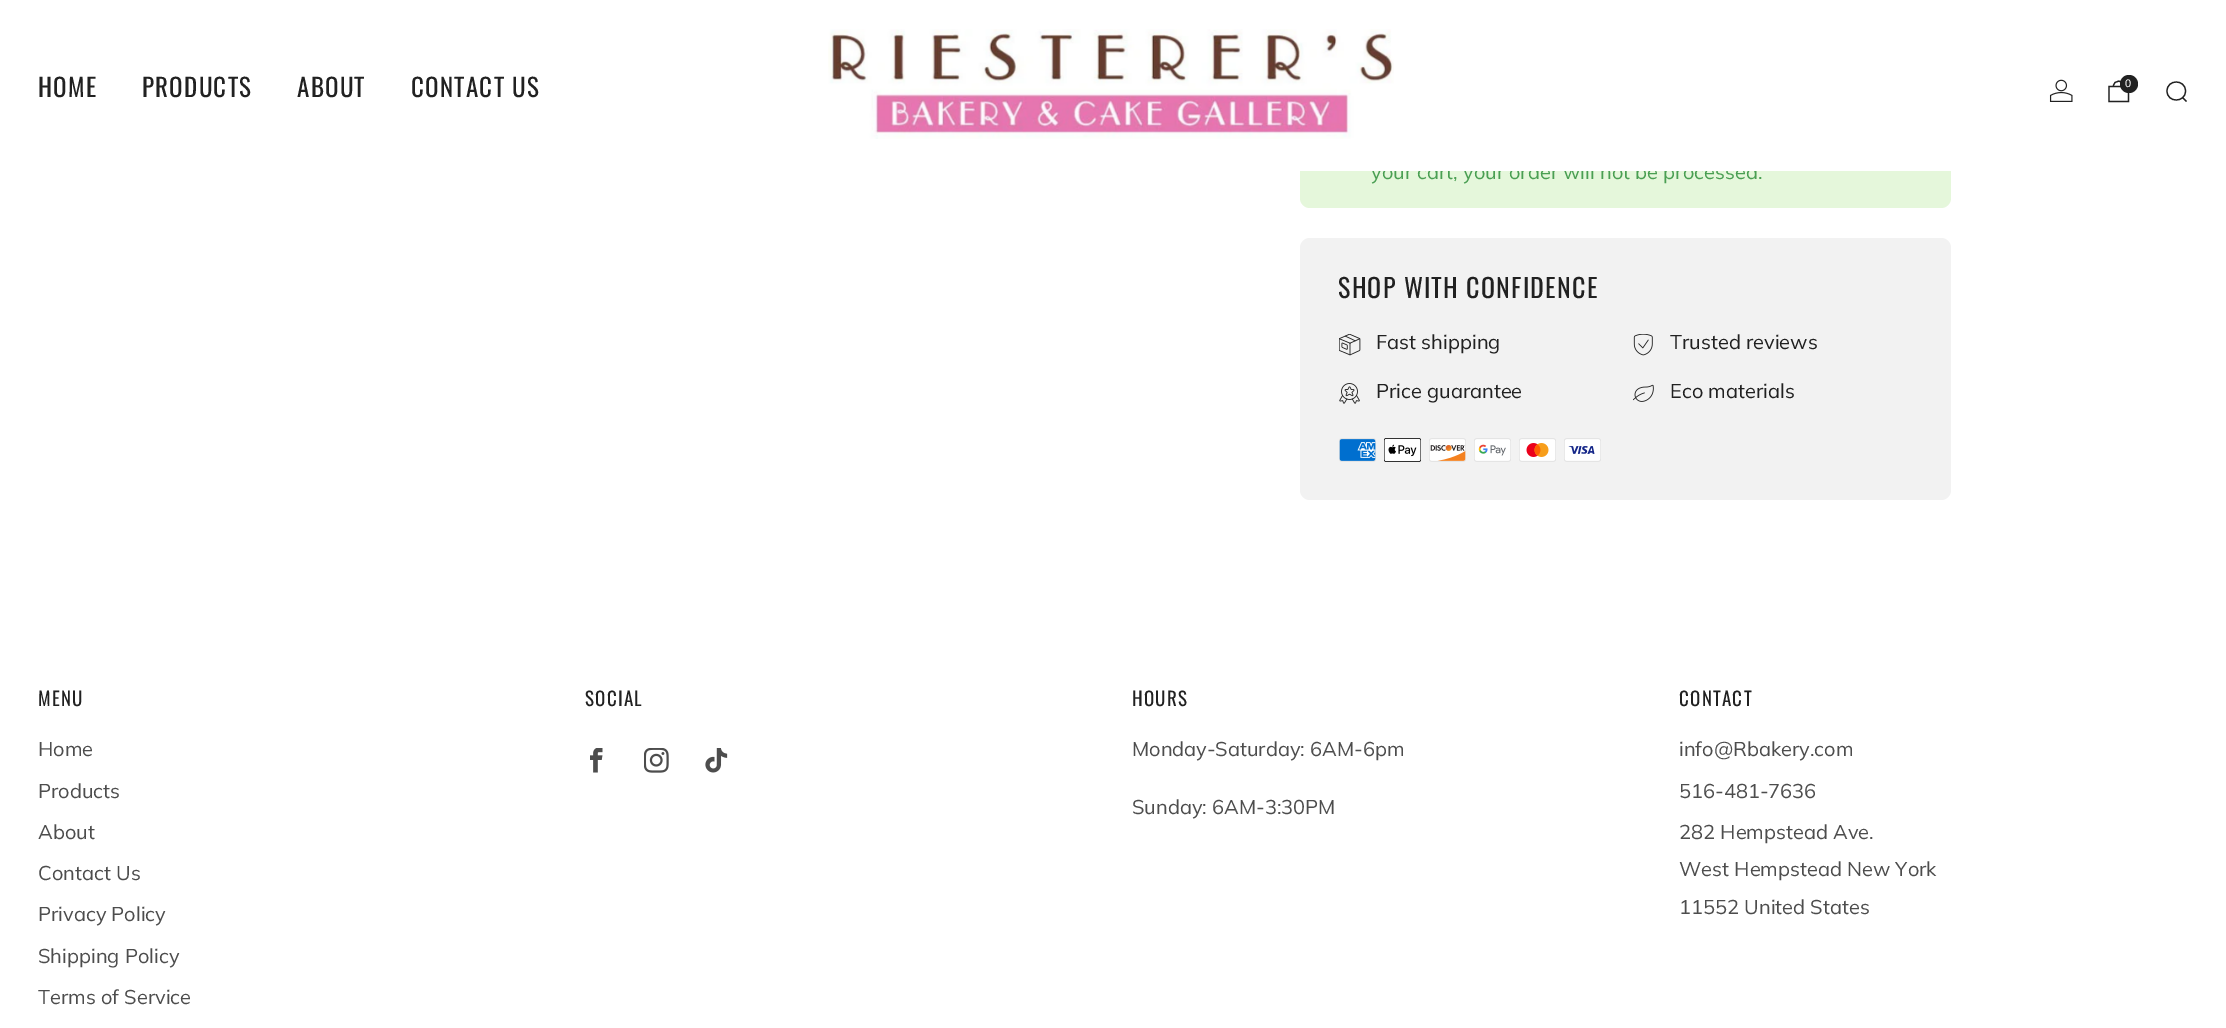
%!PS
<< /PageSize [2226 1028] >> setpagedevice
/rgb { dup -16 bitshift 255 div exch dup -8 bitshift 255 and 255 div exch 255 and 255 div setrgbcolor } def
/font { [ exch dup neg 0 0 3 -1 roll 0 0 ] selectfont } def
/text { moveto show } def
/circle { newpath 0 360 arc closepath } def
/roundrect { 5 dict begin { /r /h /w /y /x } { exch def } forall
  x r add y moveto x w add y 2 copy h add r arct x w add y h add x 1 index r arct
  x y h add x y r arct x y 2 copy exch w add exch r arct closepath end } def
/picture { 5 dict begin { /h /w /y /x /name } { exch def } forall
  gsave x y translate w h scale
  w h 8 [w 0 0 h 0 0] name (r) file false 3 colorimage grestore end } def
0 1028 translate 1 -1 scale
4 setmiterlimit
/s1 { /Muli-Regular 20 font 16#4A9F53 rgb } def
/s2 { /LiberationSans-Regular 11 font 16#FFFFFF rgb } def
/s3 { /Muli-Regular 20 font 16#212121 rgb } def
/s4 { /Muli-Regular 20 font 16#4D4D4D rgb } def
16#FFFFFF rgb
0 0 2226 1028 rectfill
16#E5F7DB rgb
1300 61 651 147 10 roundrect fill
s1
(your cart, your order will not be processed.) 1371 179 text
16#FFFFFF rgb
1300 61 651 110 rectfill
(pic1.raw) 828 29 566 110 picture
/Oswald-Regular 25 font
16#212121 rgb
38 97 moveto 1.25 0 (HOME) ashow
142 97 moveto 1.25 0 (PRODUCTS) ashow
297 97 moveto 1.25 0 (ABOUT) ashow
411 97 moveto 1.25 0 (CONTACT US) ashow
(pic2.raw) 2049 79 24 23 picture
1.2 setlinewidth
2124 86 moveto 2124 79.5 2113.5 79.5 2113.5 86 curveto 2109 86.5 moveto 2128.5 86.5 lineto 2128.5 101.5 lineto 2109 101.5 lineto closepath stroke
2129 84 9 circle fill
s2
(0) 2125 87 text
16#212121 rgb
2182.5 97.5 moveto 2186.5 101.5 lineto 2185.5 91 moveto 2185.5 103 2167 103 2167 91 curveto 2167 79 2185.5 79 2185.5 91 curveto closepath stroke
16#F2F2F2 rgb
1300 238 651 262 10 roundrect fill
/Oswald-Regular 26 font
16#212121 rgb
1338 298 moveto 1.25 0 (SHOP WITH CONFIDENCE) ashow
(pic3.raw) 1339 334 22 22 picture
s3
(Fast shipping) 1376 349 text
(pic4.raw) 1633 334 20 22 picture
(Trusted reviews) 1670 349 text
(pic5.raw) 1339 383 21 21 picture
(Price guarantee) 1376 398 text
(pic6.raw) 1633 384 21 18 picture
(Eco materials) 1670 398 text
(pic7.raw) 1339 438 37 24 picture
(pic8.raw) 1384 438 37 24 picture
(pic9.raw) 1429 438 37 24 picture
(pic10.raw) 1474 438 37 24 picture
(pic11.raw) 1519 438 37 24 picture
(pic12.raw) 1564 438 37 24 picture
/Oswald-Regular 19 font
38 706 moveto 1.25 0 (MENU) ashow
s4
(Home) 38 756 text
(Products) 38 798 text
(About) 38 839 text
(Contact Us) 38 880 text
(Privacy Policy) 38 921 text
(Shipping Policy) 38 963 text
(Terms of Service) 38 1004 text
/Oswald-Regular 19 font
16#212121 rgb
585 706 moveto 1.25 0 (SOCIAL) ashow
(pic13.raw) 590 748 13 25 picture
(pic14.raw) 644 748 25 25 picture
(pic15.raw) 705 748 23 25 picture
1132 706 moveto 1.25 0 (HOURS) ashow
s4
(Monday-Saturday: 6AM-6pm) 1132 756 text
(Sunday: 6AM-3:30PM) 1132 814 text
/Oswald-Regular 19 font
16#212121 rgb
1679 706 moveto 1.25 0 (CONTACT) ashow
s4
(info@Rbakery.com) 1679 756 text
(516-481-7636) 1679 798 text
(282 Hempstead Ave.) 1679 839 text
(West Hempstead New York) 1679 876 text
(11552 United States) 1679 914 text
showpage
